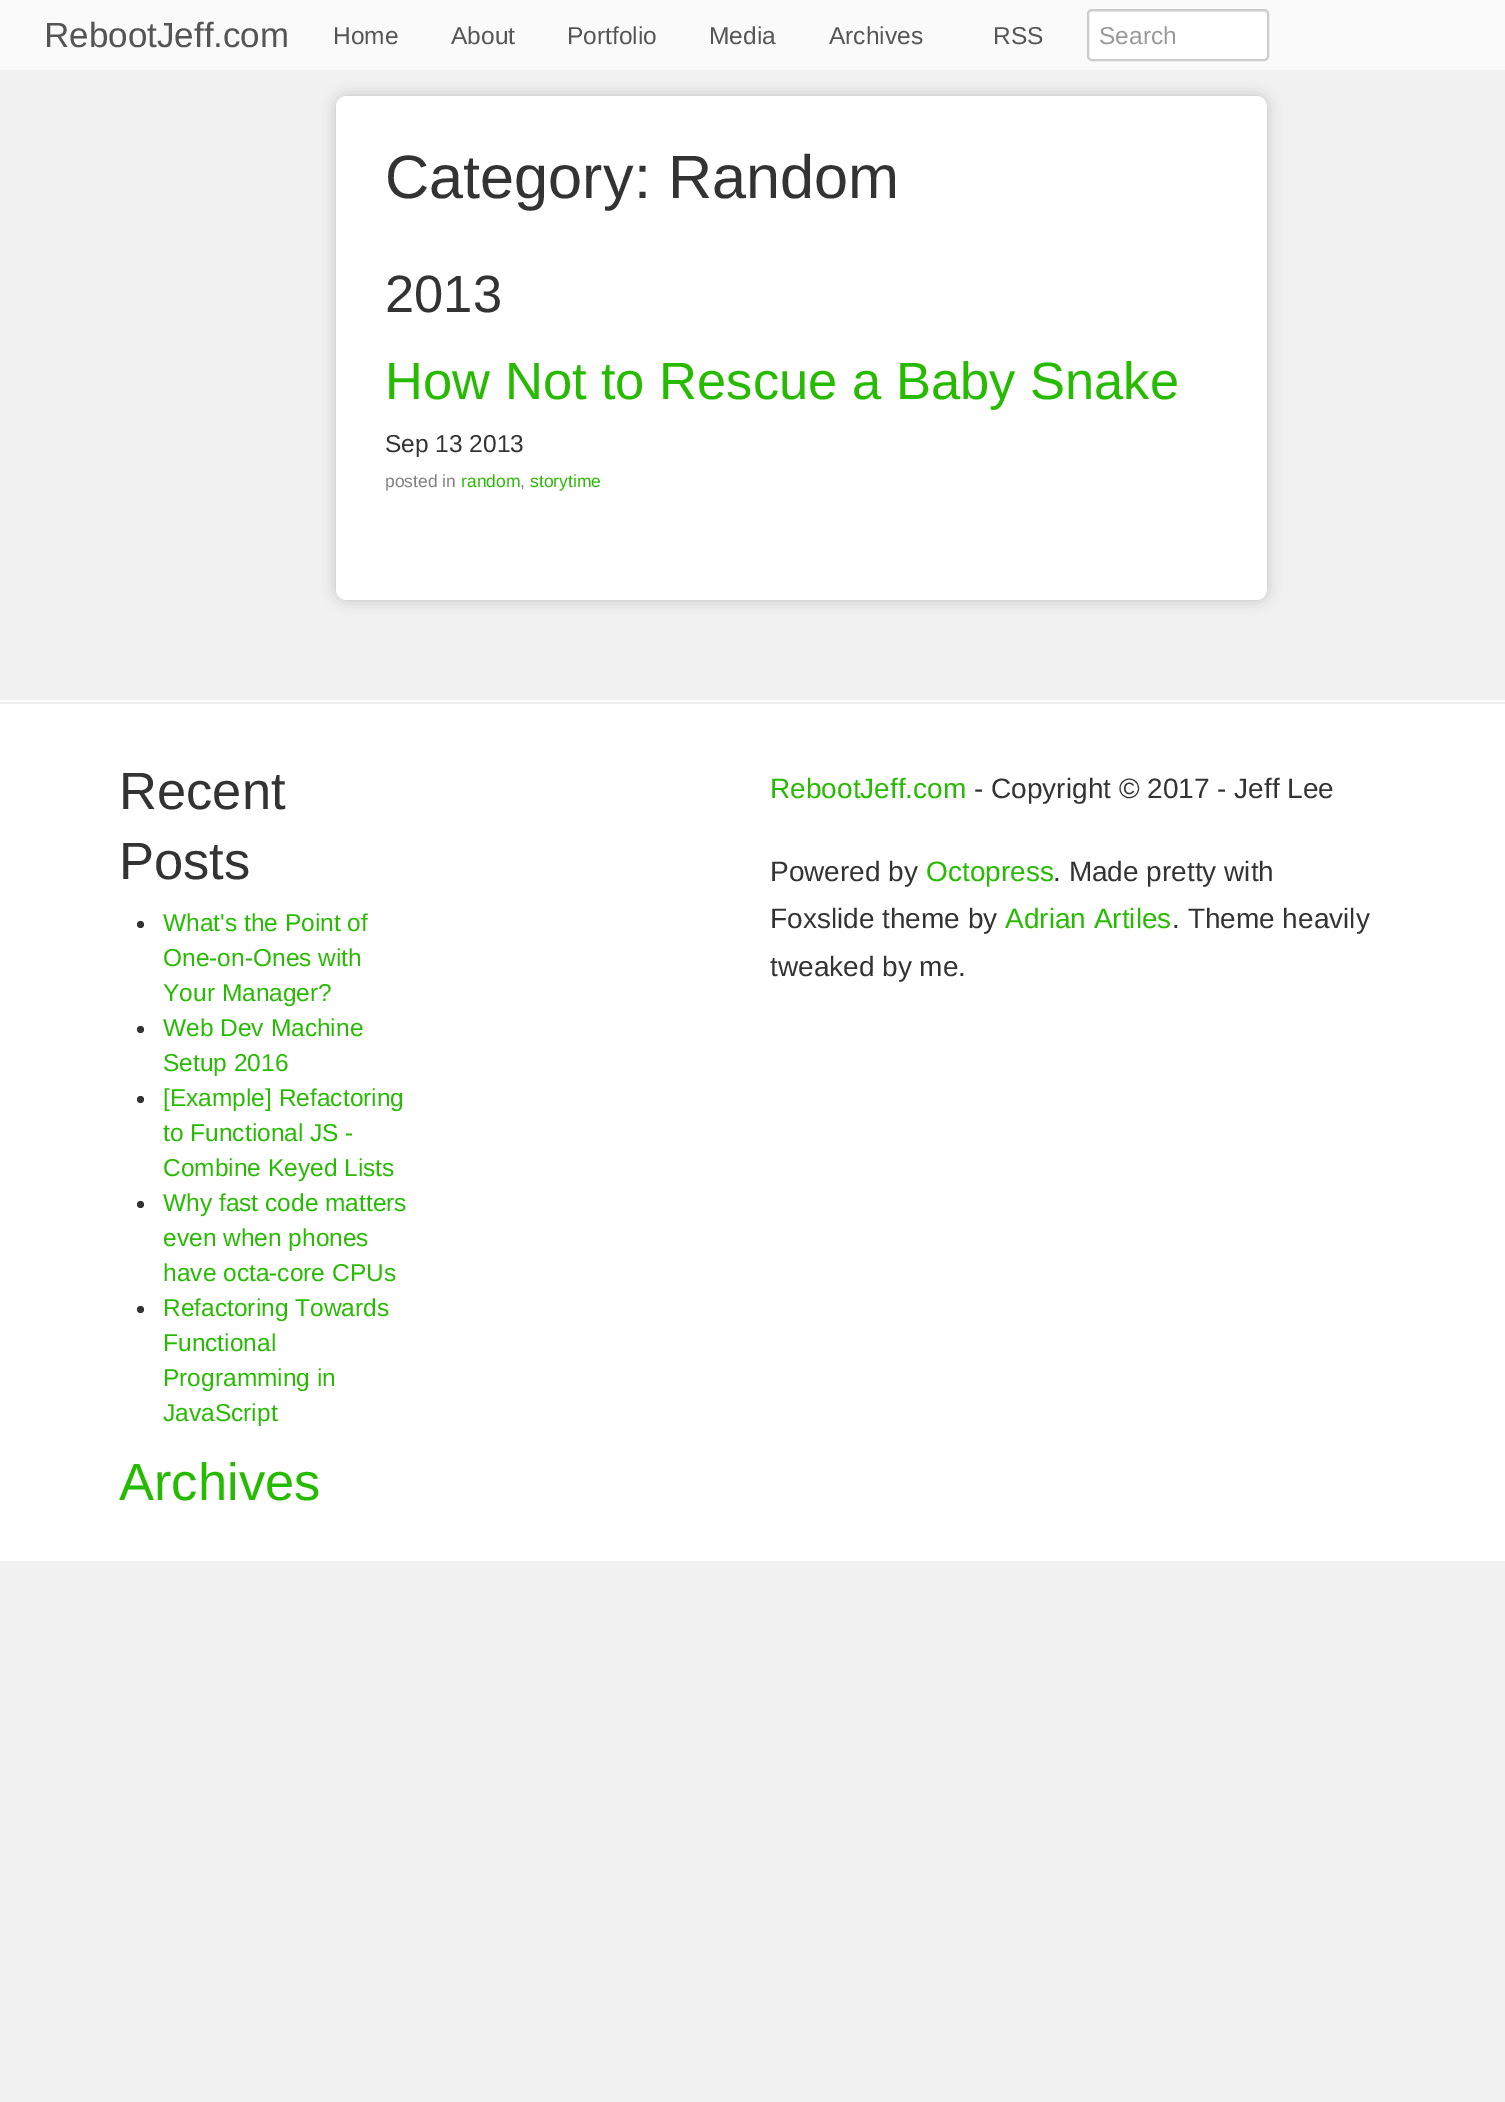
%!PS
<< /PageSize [1505 2102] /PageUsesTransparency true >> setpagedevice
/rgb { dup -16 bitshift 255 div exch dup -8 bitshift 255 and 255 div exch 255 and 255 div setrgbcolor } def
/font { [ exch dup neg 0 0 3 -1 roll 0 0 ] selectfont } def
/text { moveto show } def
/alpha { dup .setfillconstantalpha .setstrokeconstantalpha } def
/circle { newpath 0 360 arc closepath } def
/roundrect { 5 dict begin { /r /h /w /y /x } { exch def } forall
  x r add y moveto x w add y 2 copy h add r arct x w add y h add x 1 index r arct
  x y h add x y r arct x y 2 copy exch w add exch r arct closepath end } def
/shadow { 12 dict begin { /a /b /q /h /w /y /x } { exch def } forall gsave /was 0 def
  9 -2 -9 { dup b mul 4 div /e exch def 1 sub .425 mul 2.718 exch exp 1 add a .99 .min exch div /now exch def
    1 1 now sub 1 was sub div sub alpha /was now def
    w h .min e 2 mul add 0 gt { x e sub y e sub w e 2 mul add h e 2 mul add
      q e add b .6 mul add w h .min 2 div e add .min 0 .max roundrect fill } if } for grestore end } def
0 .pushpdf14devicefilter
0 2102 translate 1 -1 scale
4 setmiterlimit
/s1 { /LiberationSans-Regular 35 font 16#555555 rgb } def
/s2 { /LiberationSans-Regular 24.5 font 16#555555 rgb } def
/s3 { /LiberationSans-Regular 24.5 font 16#999999 rgb } def
/s4 { /LiberationSans-Regular 61.25 font 16#333333 rgb } def
/s5 { /LiberationSans-Regular 52.5 font 16#333333 rgb } def
/s6 { /LiberationSans-Regular 52.5 font 16#26BB01 rgb } def
/s7 { /LiberationSans-Regular 24.5 font 16#333333 rgb } def
/s8 { /LiberationSans-Regular 17.5 font 16#808080 rgb } def
/s9 { /LiberationSans-Regular 17.5 font 16#26BB01 rgb } def
/s10 { /LiberationSans-Regular 24.5 font 16#26BB01 rgb } def
/s11 { /LiberationSans-Regular 28 font 16#26BB01 rgb } def
/s12 { /LiberationSans-Regular 28 font 16#333333 rgb } def
16#F1F1F1 rgb
0 0 1505 2102 rectfill
16#FAFAFA rgb
0 0 1505 70 rectfill
s1
(RebootJeff.com) 44 47 text
s2
(Home) 333 44 text
(About) 451 44 text
(Portfolio) 567 44 text
(Media) 709 44 text
(Archives) 829 44 text
(RSS) 993 44 text
16#FFFFFF rgb
1087 9 182 52 5 roundrect fill
16#ECECEC rgb
1092 12 moveto 1264 12 lineto 1265 12 1267 14 1267 16 curveto 1267 15 lineto 1267 13 1265 11 1263 11 curveto 1093 11 lineto 1092 11 1090 12 1090 13 curveto closepath fill
16#CCCCCC rgb
2 setlinewidth
1088 10 180 50 4 roundrect stroke
s3
(Search) 1099 44 text
16#FFFFFF rgb
0 700 1505 2 rectfill
16#000000 rgb
336 96 931 504 11 7 0.2 shadow
16#FFFFFF rgb
336 96 931 504 11 roundrect fill
s4
(Category: Random) 385 198 text
s5
(2013) 385 312 text
s6
(How Not to Rescue a Baby Snake) 385 399 text
s7
(Sep 13 2013) 385 452 text
s8
(posted in) 385 487 text
s9
(random) 461 487 text
s8
(,) 520 487 text
s9
(storytime) 530 487 text
16#FFFFFF rgb
0 704 1505 857 rectfill
s5
(Recent) 119 809 text
(Posts) 119 879 text
140.5 924.5 3.5 circle fill
s10
(What's the Point of) 163 931 text
(One-on-Ones with) 163 966 text
(Your Manager?) 163 1001 text
16#333333 rgb
140.5 1029.5 3.5 circle fill
s10
(Web Dev Machine) 163 1036 text
(Setup 2016) 163 1071 text
16#333333 rgb
140.5 1099.5 3.5 circle fill
s10
([Example] Refactoring) 163 1106 text
(to Functional JS -) 163 1141 text
(Combine Keyed Lists) 163 1176 text
16#333333 rgb
140.5 1204.5 3.5 circle fill
s10
(Why fast code matters) 163 1211 text
(even when phones) 163 1246 text
(have octa-core CPUs) 163 1281 text
16#333333 rgb
140.5 1309.5 3.5 circle fill
s10
(Refactoring Towards) 163 1316 text
(Functional) 163 1351 text
(Programming in) 163 1386 text
(JavaScript) 163 1421 text
s6
(Archives) 119 1500 text
s11
(RebootJeff.com) 770 798 text
s12
(- Copyright © 2017 - Jeff Lee) 974 798 text
(Powered by) 770 881 text
s11
(Octopress) 926 881 text
s12
(. Made pretty with) 1053 881 text
(Foxslide theme by) 770 928 text
s11
(Adrian Artiles) 1005 928 text
s12
(. Theme heavily) 1172 928 text
(tweaked by me.) 770 976 text
.poppdf14devicefilter showpage
